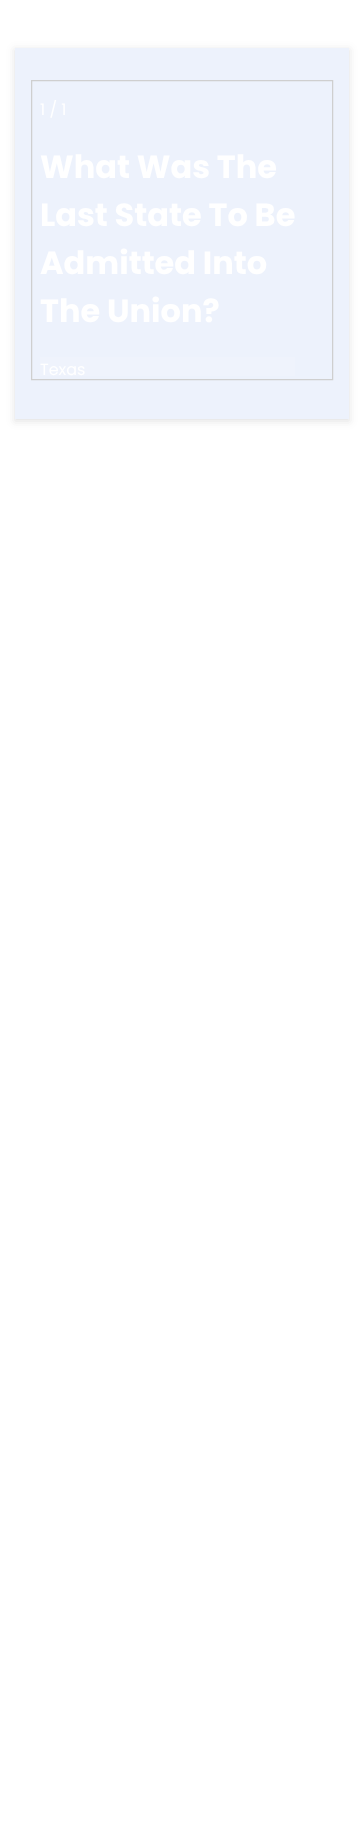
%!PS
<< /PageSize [364 1832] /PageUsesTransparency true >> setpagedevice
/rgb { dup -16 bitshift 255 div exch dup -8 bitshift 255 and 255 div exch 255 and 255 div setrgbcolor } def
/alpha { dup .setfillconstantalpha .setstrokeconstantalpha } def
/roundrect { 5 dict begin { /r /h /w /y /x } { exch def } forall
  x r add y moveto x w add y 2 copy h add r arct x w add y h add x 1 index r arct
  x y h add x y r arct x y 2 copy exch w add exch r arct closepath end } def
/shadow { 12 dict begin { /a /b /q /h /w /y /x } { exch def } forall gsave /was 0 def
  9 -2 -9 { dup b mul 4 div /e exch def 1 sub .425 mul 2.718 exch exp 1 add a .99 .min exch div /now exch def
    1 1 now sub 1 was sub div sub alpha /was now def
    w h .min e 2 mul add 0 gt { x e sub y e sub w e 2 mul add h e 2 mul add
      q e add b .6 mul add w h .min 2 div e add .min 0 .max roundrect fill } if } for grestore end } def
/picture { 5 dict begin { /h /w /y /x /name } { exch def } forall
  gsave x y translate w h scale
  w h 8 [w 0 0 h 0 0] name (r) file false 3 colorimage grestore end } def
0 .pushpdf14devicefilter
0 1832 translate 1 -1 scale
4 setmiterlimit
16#FFFFFF rgb
0 0 364 1832 rectfill
16#9B9B9B rgb
15 50 334 371 0 4 0.32 shadow
16#EDF2FC rgb
15 48 334 371 rectfill
16#CFCFCF rgb
31.5 80.5 301 299 rectstroke
(pic1.raw) 40 100 255 276 picture
.poppdf14devicefilter showpage
